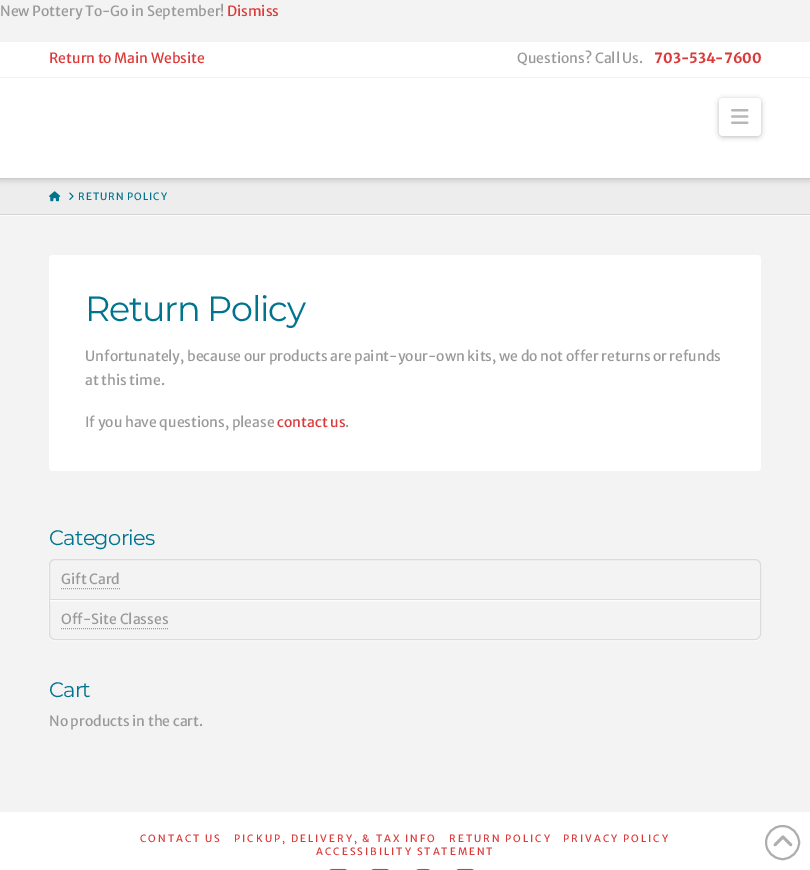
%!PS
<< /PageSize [810 870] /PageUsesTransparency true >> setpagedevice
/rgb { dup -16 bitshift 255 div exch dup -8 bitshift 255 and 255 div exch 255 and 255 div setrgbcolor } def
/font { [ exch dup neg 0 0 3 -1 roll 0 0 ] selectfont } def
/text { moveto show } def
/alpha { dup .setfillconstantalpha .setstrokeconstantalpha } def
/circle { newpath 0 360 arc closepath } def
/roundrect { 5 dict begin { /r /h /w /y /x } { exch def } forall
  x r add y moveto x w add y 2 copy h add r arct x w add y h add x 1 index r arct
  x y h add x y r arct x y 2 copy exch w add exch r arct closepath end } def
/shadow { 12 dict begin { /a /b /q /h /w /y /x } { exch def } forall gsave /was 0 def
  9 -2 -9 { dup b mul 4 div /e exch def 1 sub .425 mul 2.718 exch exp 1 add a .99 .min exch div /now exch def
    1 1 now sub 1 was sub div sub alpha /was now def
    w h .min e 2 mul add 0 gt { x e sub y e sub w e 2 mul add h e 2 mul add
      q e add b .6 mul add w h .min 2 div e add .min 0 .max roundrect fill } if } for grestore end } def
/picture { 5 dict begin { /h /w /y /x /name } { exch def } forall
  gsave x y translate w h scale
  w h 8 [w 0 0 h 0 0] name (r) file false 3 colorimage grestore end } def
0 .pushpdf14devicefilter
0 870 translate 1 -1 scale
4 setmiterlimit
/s1 { /MerriweatherSans-Regular 14 font 16#999999 rgb } def
/s2 { /MerriweatherSans-Regular 14 font 16#DA3B3A rgb } def
/s3 { /MerriweatherSans-Bold 14 font 16#DA3B3A rgb } def
16#F3F3F3 rgb
0 0 810 870 rectfill
s1
(New Pottery To-Go in September!) 0 16 text
s2
(Dismiss) 227 16 text
16#EDEDED rgb
0 179 810 35 rectfill
16#000000 rgb
0 80 810 101 0 2.5 0.13 shadow
16#FFFFFF rgb
0 42 810 35 rectfill
16#F2F2F2 rgb
0 77 810 1 rectfill
s2
(Return to Main Website) 49 63 text
s1
(Questions? Call Us.) 517 63 text
s3
(703-534-7600) 654 63 text
16#FFFFFF rgb
0 78 810 100 rectfill
16#CCCCCC rgb
0 178 810 1 rectfill
16#000000 rgb
719 99 42 38 4 2.5 0.25 shadow
16#FFFFFF rgb
719 98 42 38 4 roundrect fill
(pic1.raw) 731 109 18 15 picture
16#FCFCFC rgb
0 215 810 1 rectfill
16#D5D5D5 rgb
0 214 810 1 rectfill
(pic2.raw) 49 191 12 11 picture
(pic3.raw) 69 192 5 8 picture
/MerriweatherSans-Regular 10 font
16#00748E rgb
78 200 moveto 1 0 (RETURN POLICY) ashow
16#FFFFFF rgb
49 255 712 216 4 roundrect fill
/Montserrat-Thin 35 font
16#00748E rgb
85 321 moveto -1.25 0 (Return Policy) ashow
s1
(Unfortunately, because our products are paint-your-own kits, we do not offer returns or refunds) 85 361 text
(at this time.) 85 385 text
(If you have questions, please) 85 427 text
s2
(contact us) 277 427 text
s1
(.) 345 427 text
/Montserrat-Thin 21 font
16#00748E rgb
49 545 moveto -0.75 0 (Categories) ashow
gsave
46 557 moveto 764 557 lineto 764 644 lineto 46 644 lineto closepath 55 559 moveto 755 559 lineto 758.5 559 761 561.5 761 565 curveto 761 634 lineto 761 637.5 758.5 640 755 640 curveto 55 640 lineto 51.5 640 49 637.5 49 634 curveto 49 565 lineto 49 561.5 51.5 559 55 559 curveto closepath eoclip newpath
16#FFFFFF rgb
49 560 712 81 6 0.5 0.95 shadow
grestore
16#DBDBDB rgb
49.5 559.5 711 80 5.5 roundrect stroke
gsave
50 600 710 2 rectclip
16#FFFFFF rgb
50 561 710 40 0 0.5 0.95 shadow
grestore
50 599 710 1 rectfill
s1
(Gift Card) 61 584 text
[1 1] 0 setdash
61 588.5 moveto 121 588.5 lineto stroke
(Off-Site Classes) 61 624 text
61 628.5 moveto 169 628.5 lineto stroke
/Montserrat-Thin 21 font
16#00748E rgb
49 697 moveto -0.75 0 (Cart) ashow
s1
(No products in the cart.) 49 726 text
16#FFFFFF rgb
0 812 810 58 rectfill
/MerriweatherSans-Regular 10 font
16#DA3B3A rgb
140 842 moveto 2 0 (CONTACT US) ashow
234 842 moveto 2 0 (PICKUP, DELIVERY, & TAX INFO) ashow
449 842 moveto 2 0 (RETURN POLICY) ashow
563 842 moveto 2 0 (PRIVACY POLICY) ashow
316 855 moveto 2 0 (ACCESSIBILITY STATEMENT) ashow
(pic4.raw) 329 868 18 2 picture
(pic4.raw) 371 868 18 2 picture
(pic5.raw) 416 868 14 2 picture
(pic4.raw) 456 868 18 2 picture
16#AEAEAE rgb
2 setlinewidth
[] 0 setdash
782.5 842.5 16.5 circle stroke
(pic6.raw) 773 835 20 12 picture
.poppdf14devicefilter showpage
